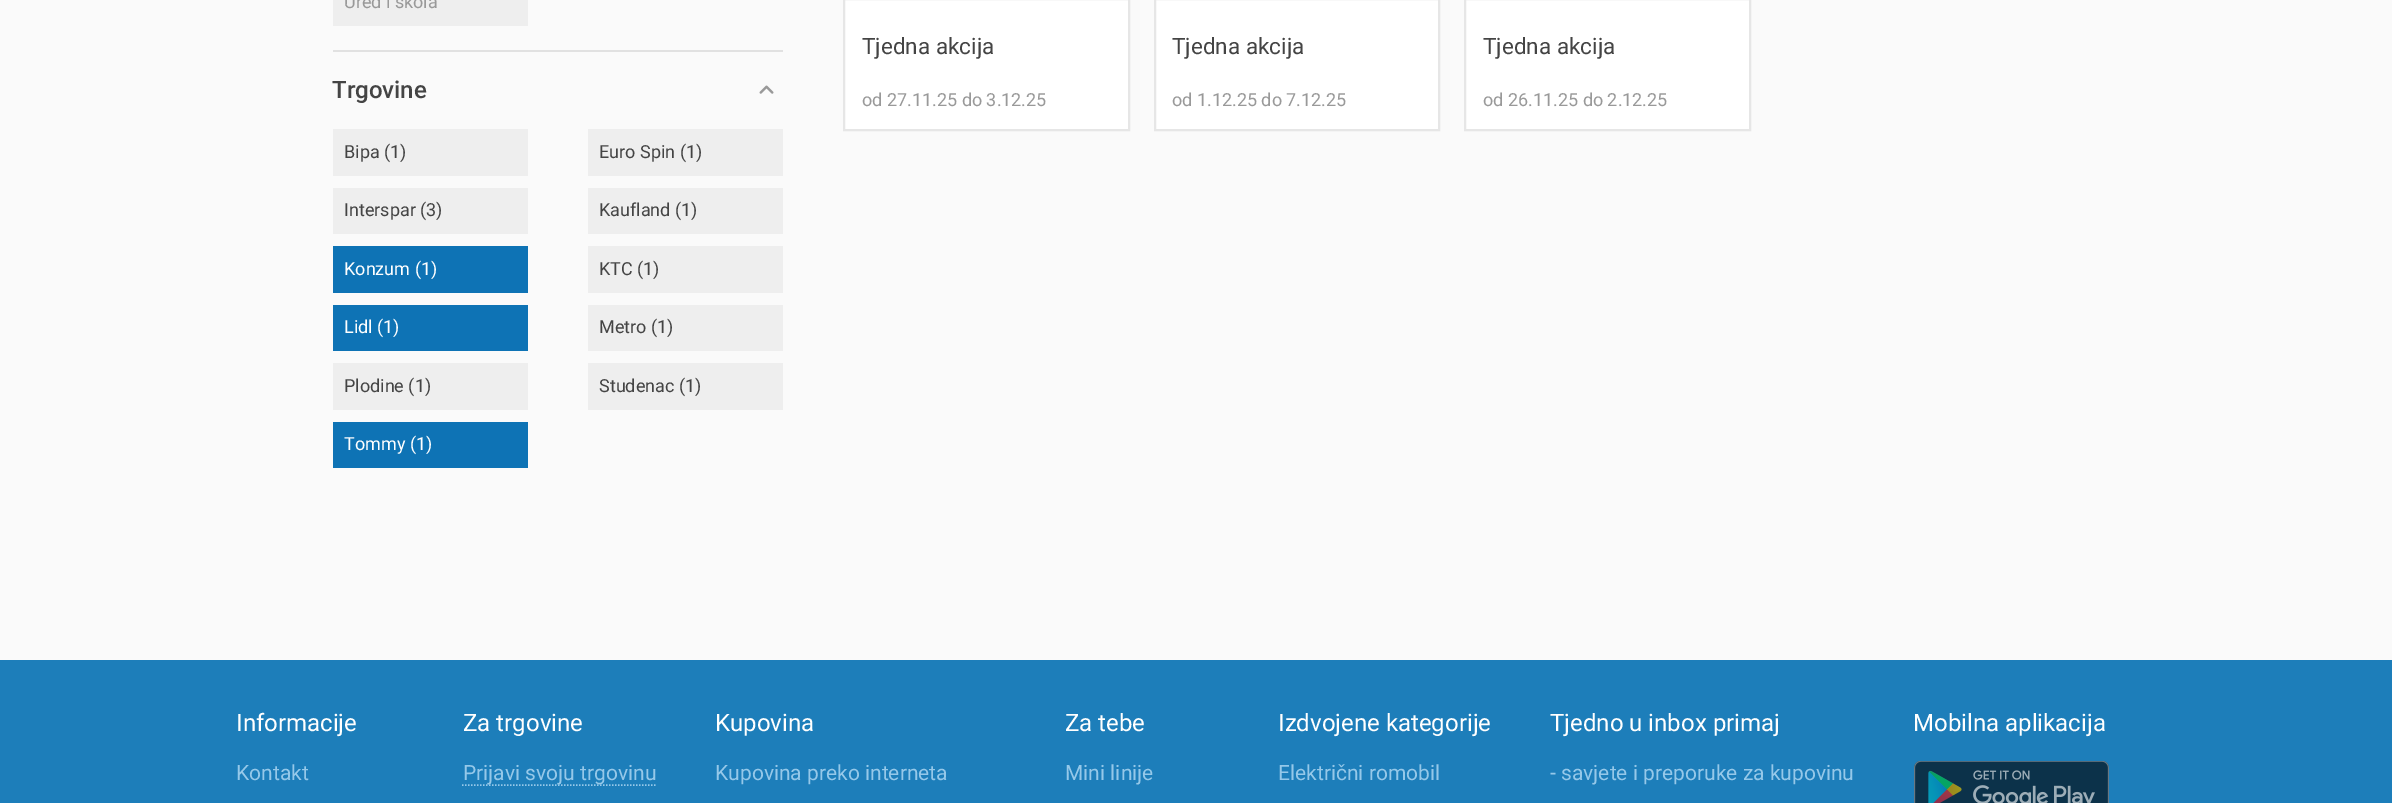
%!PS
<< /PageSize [2392 803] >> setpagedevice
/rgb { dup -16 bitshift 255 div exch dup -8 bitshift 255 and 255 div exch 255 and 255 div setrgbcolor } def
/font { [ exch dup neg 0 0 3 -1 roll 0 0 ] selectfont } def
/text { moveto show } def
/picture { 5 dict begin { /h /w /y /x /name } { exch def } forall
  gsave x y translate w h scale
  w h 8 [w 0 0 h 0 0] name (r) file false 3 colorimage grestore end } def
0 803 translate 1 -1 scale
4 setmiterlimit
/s1 { /Roboto-Regular 18 font 16#999999 rgb } def
/s2 { /Roboto-Medium 24 font 16#444444 rgb } def
/s3 { /Roboto-Regular 18 font 16#444444 rgb } def
/s4 { /Roboto-Regular 18 font 16#FFFFFF rgb } def
/s5 { /Roboto-Regular 22.5 font 16#444444 rgb } def
/s6 { /Roboto-Regular 24 font 16#FFFFFF rgb } def
/s7 { /Roboto-Regular 21 font 16#95C8E9 rgb } def
16#FAFAFA rgb
0 0 2392 803 rectfill
16#EEEEEE rgb
333 0 195 26 rectfill
s1
(Ured i škola) 344 8 text
16#E1E1E1 rgb
333 50 450 2 rectfill
s2
(Trgovine) 332 98 text
(pic1.raw) 759 85 15 9 picture
16#EEEEEE rgb
333 129 195 47 rectfill
s3
(Bipa \(1\)) 344 158 text
16#EEEEEE rgb
588 129 195 47 rectfill
s3
(Euro Spin \(1\)) 599 158 text
16#EEEEEE rgb
333 188 195 46 rectfill
s3
(Interspar \(3\)) 344 216 text
16#EEEEEE rgb
588 188 195 46 rectfill
s3
(Kaufland \(1\)) 599 216 text
16#0E73B5 rgb
333 246 195 47 rectfill
s4
(Konzum \(1\)) 344 275 text
16#EEEEEE rgb
588 246 195 47 rectfill
s3
(KTC \(1\)) 599 275 text
16#0E73B5 rgb
333 305 195 46 rectfill
s4
(Lidl \(1\)) 344 333 text
16#EEEEEE rgb
588 305 195 46 rectfill
s3
(Metro \(1\)) 599 333 text
16#EEEEEE rgb
333 363 195 47 rectfill
s3
(Plodine \(1\)) 344 392 text
16#EEEEEE rgb
588 363 195 47 rectfill
s3
(Studenac \(1\)) 599 392 text
16#0E73B5 rgb
333 422 195 46 rectfill
s4
(Tommy \(1\)) 344 450 text
844 -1 moveto 1129 -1 lineto 1129 130 lineto 844 130 lineto closepath gsave fill grestore
16#E6E6E6 rgb
2 setlinewidth
stroke
s5
(Tjedna akcija) 862 54 text
s1
(od 27.11.25 do 3.12.25) 862 106 text
16#FFFFFF rgb
1155 -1 moveto 1439 -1 lineto 1439 130 lineto 1155 130 lineto closepath gsave fill grestore
16#E6E6E6 rgb
stroke
s5
(Tjedna akcija) 1172 54 text
s1
(od 1.12.25 do 7.12.25) 1172 106 text
16#FFFFFF rgb
1465 -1 moveto 1750 -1 lineto 1750 130 lineto 1465 130 lineto closepath gsave fill grestore
16#E6E6E6 rgb
stroke
s5
(Tjedna akcija) 1483 54 text
s1
(od 26.11.25 do 2.12.25) 1483 106 text
16#1D7EBA rgb
0 660 2392 143 rectfill
s6
(Informacije) 236 731 text
s7
(Kontakt) 236 780 text
s6
(Za trgovine) 463 731 text
16#95C8E9 rgb
1.5 setlinewidth
[1.5 1.5] 0 setdash
462 785 moveto 655.5 785 lineto stroke
s7
(Prijavi svoju trgovinu) 463 780 text
s6
(Kupovina) 715 731 text
s7
(Kupovina preko interneta) 715 780 text
s6
(Za tebe) 1065 731 text
s7
(Mini linije) 1065 780 text
s6
(Izdvojene kategorije) 1278 731 text
s7
(Električni romobil) 1278 780 text
s6
(Tjedno u inbox primaj) 1550 731 text
s7
(- savjete i preporuke za kupovinu) 1550 780 text
s6
(Mobilna aplikacija) 1913 731 text
(pic2.raw) 1914 761 195 42 picture
showpage
